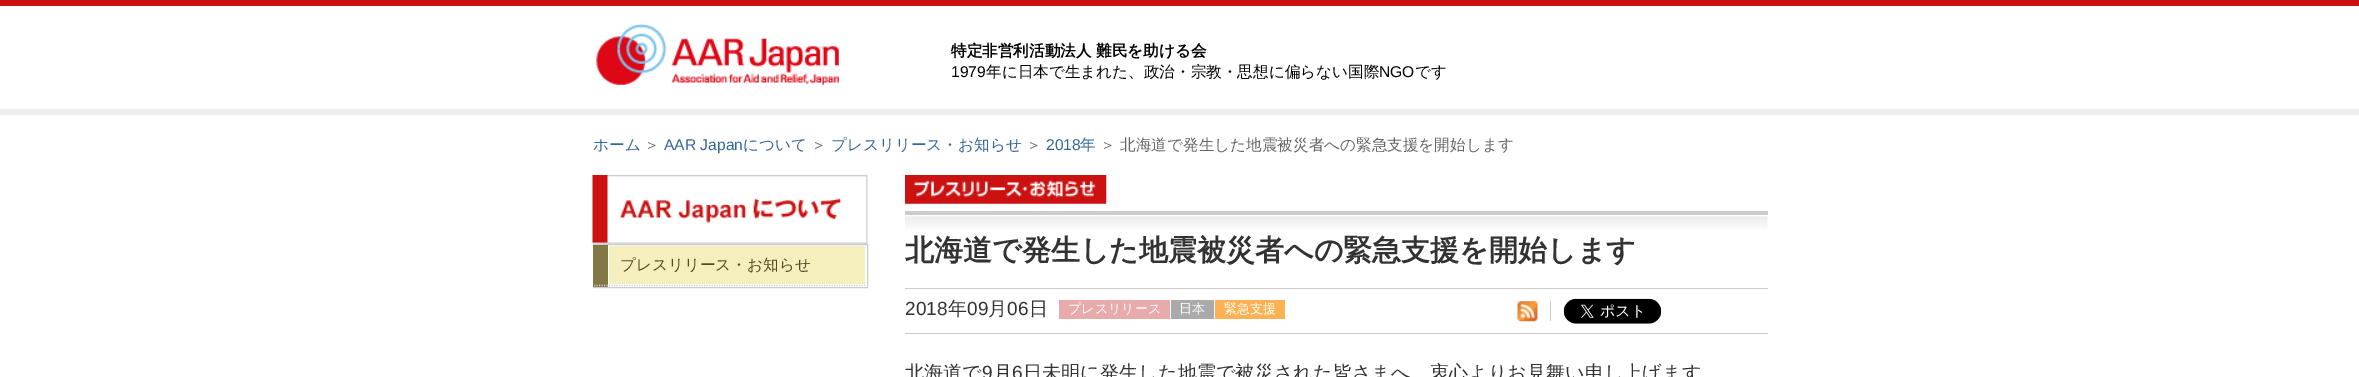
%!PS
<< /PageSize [2359 377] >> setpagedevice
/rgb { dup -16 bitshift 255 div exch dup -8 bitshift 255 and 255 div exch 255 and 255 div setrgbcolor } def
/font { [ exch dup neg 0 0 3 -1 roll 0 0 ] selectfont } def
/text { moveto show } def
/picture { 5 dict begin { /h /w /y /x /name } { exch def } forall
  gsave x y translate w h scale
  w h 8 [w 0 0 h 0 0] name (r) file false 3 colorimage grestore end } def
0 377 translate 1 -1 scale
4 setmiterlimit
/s1 { /WenQuanYiZenHei-Bold 15.6 font 16#000000 rgb } def
/s2 { /LiberationSans-Regular 15.6 font 16#000000 rgb } def
/s3 { /WenQuanYiZenHei-Medium 15.6 font 16#000000 rgb } def
/s4 { /WenQuanYiZenHei-Medium 15.6 font 16#336699 rgb } def
/s5 { /WenQuanYiZenHei-Medium 15.6 font 16#666666 rgb } def
/s6 { /LiberationSans-Regular 15.6 font 16#336699 rgb } def
/s7 { /WenQuanYiZenHei-Medium 15.6 font 16#554822 rgb } def
/s8 { /WenQuanYiZenHei-Bold 29 font 16#333333 rgb } def
/s9 { /LiberationSans-Regular 19 font 16#333333 rgb } def
/s10 { /WenQuanYiZenHei-Medium 19 font 16#333333 rgb } def
/s11 { /WenQuanYiZenHei-Medium 13 font 16#FFFFFF rgb } def
/s12 { /WenQuanYiZenHei-Medium 19.15 font 16#333333 rgb } def
/s13 { /LiberationSans-Regular 19.15 font 16#333333 rgb } def
16#FFFFFF rgb
0 0 2359 377 rectfill
16#CC1111 rgb
0 0 2359 6 rectfill
(pic1.raw) 596 23 243 62 picture
s1
(特定非営利活動法人 難民を助ける会) 951 56 text
s2
(1979) 951 77 text
s3
(年に日本で生まれた、政治・宗教・思想に偏らない国際) 986 77 text
s2
(NGO) 1379 77 text
s3
(です) 1415 77 text
16#EEEEEE rgb
0 109 2359 6 rectfill
s4
(ホーム) 593 150 text
s5
(＞) 644 150 text
s6
(AAR Japan) 664 150 text
s4
(について) 743 150 text
s5
(＞) 811 150 text
s4
(プレスリリース・お知らせ) 831 150 text
s5
(＞) 1026 150 text
s6
(2018) 1046 150 text
s4
(年) 1080 150 text
s5
(＞ 北海道で発生した地震被災者への緊急支援を開始します) 1100 150 text
(pic2.raw) 592 175 276 69 picture
16#CCCCCC rgb
593.5 244.5 274 43 rectstroke
16#847746 rgb
593 245 15 42 rectfill
16#CCCCCC rgb
1.2 setlinewidth
[1.25 1.25] 0 setdash
594 285.5 moveto 866 285.5 lineto stroke
16#F5EFBE rgb
609 246 256 38 rectfill
s7
(プレスリリース・お知らせ) 620 270 text
(pic3.raw) 905 175 202 29 picture
(pic4.raw) 905 216 863 13 picture
16#CCCCCC rgb
905 211 863 4 rectfill
905 288 863 1 rectfill
s8
(北海道で発生した地震被災者への緊急支援を開始します) 905 260 text
16#CCCCCC rgb
905 333 863 1 rectfill
s9
(2018) 905 315 text
s10
(年) 948 315 text
s9
(09) 967 315 text
s10
(月) 988 315 text
s9
(06) 1007 315 text
s10
(日) 1029 315 text
16#E7ABAB rgb
1059 300 111 19 rectfill
s11
(プレスリリース) 1068 313 text
16#AAAAAA rgb
1171 300 43 19 rectfill
s11
(日本) 1179 313 text
16#FCB252 rgb
1215 300 70 19 rectfill
s11
(緊急支援) 1224 313 text
16#CCCCCC rgb
1550 301 1 20 rectfill
(pic5.raw) 1517 301 21 21 picture
(pic6.raw) 1563 298 99 26 picture
s12
(北海道で) 905 379 text
s13
(9) 982 379 text
s12
(月) 993 379 text
s13
(6) 1012 379 text
s12
(日未明に発生した地震で被災された皆さまへ、衷心よりお見舞い申し上げます) 1023 379 text
showpage
